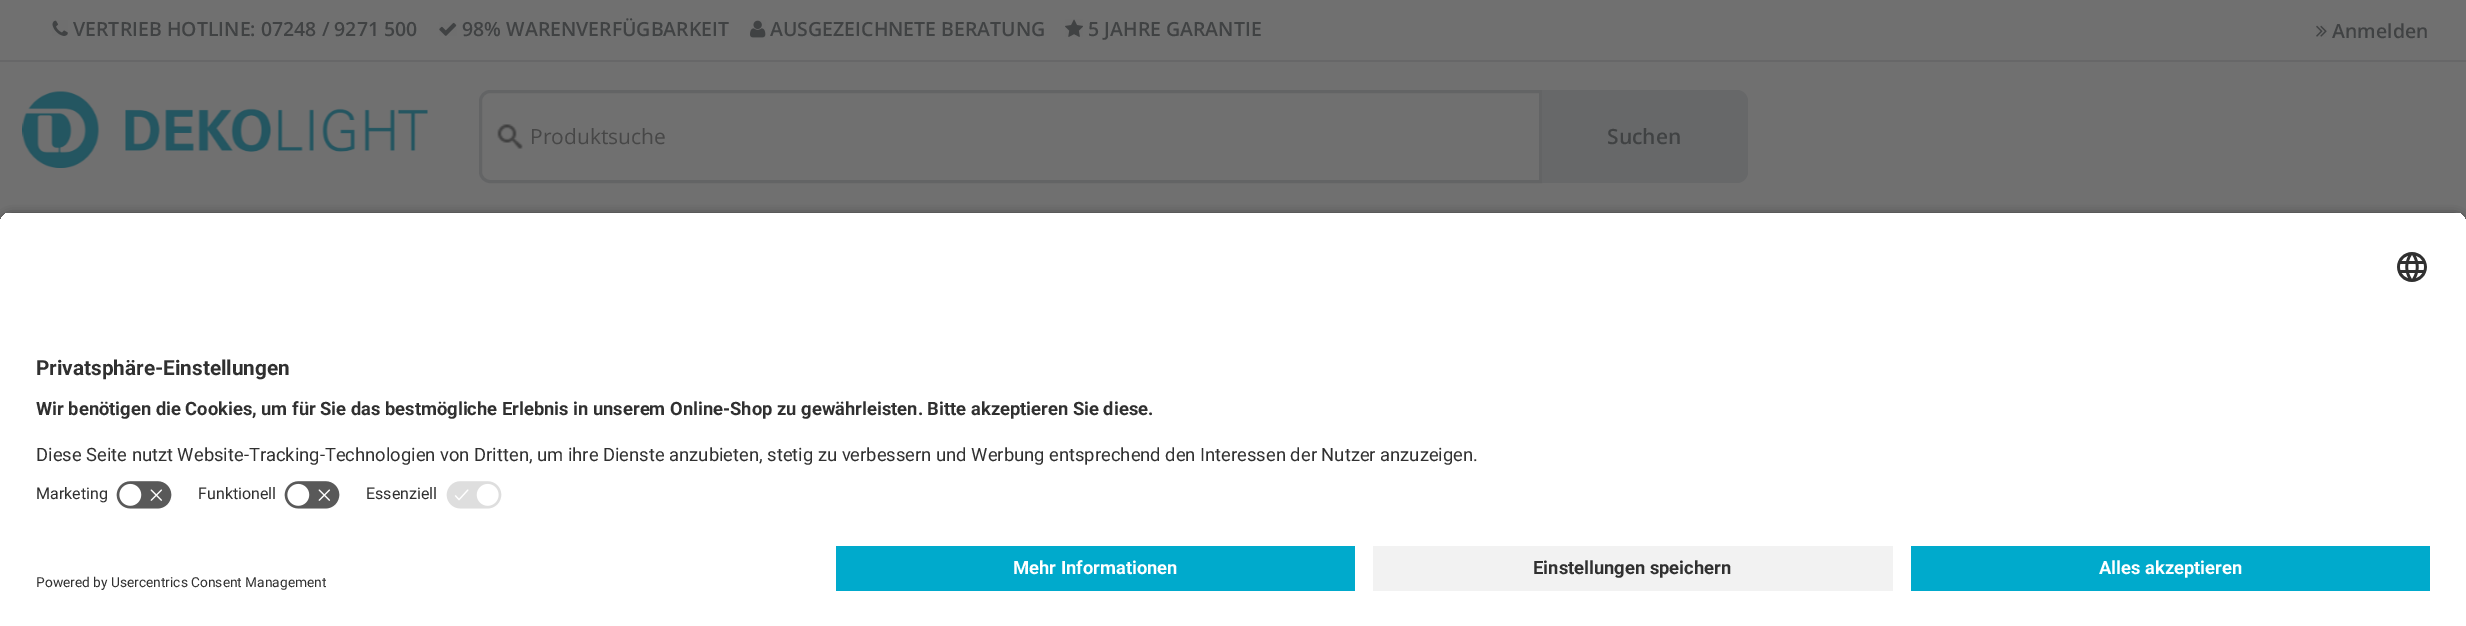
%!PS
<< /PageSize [2466 626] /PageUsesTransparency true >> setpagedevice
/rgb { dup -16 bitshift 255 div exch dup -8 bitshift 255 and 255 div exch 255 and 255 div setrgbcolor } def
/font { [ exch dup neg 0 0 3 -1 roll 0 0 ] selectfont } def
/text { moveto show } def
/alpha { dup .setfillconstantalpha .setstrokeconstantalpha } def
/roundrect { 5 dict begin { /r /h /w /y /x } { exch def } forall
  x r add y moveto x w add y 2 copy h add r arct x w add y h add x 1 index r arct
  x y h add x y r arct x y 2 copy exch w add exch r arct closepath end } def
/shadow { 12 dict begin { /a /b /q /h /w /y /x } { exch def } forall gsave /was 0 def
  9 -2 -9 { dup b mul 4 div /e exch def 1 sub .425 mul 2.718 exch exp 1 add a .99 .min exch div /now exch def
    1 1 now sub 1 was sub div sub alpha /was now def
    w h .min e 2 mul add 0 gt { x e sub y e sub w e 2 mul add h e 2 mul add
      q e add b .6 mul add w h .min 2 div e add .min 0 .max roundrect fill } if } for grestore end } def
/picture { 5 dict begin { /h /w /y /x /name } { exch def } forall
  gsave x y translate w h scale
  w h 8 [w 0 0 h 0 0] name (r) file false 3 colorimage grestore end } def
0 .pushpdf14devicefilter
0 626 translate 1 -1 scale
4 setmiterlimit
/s1 { /OpenSans-SemiBold 19.5 font 16#404243 rgb } def
/s2 { /OpenSans-Regular 21 font 16#474747 rgb } def
/s3 { /OpenSans-SemiBold 21 font 16#404243 rgb } def
/s4 { /Roboto-Bold 20.75 font 16#303030 rgb } def
/s5 { /Roboto-Bold 18.38 font 16#303030 rgb } def
/s6 { /Roboto-Regular 18.38 font 16#303030 rgb } def
/s7 { /Roboto-Regular 16 font 16#303030 rgb } def
/s8 { /Roboto-Bold 18.38 font 16#FFFFFF rgb } def
/s9 { /Roboto-Regular 13.75 font 16#303030 rgb } def
16#707070 rgb
0 0 2466 626 rectfill
16#676768 rgb
0 60 2466 2 rectfill
(pic1.raw) 52 20 16 16 picture
s1
(VERTRIEB HOTLINE: 07248 / 9271 500) 73 36 text
(pic2.raw) 439 22 18 14 picture
(98% WARENVERFÜGBARKEIT) 462 36 text
(pic3.raw) 750 20 16 18 picture
(AUSGEZEICHNETE BERATUNG) 770 36 text
(pic4.raw) 1065 19 18 18 picture
(5 JAHRE GARANTIE) 1088 36 text
(pic5.raw) 2316 25 11 12 picture
(Anmelden) 2332 38 text
(pic6.raw) 22 91 406 77 picture
(pic7.raw) 497 124 26 25 picture
16#636465 rgb
3 setlinewidth
490 91.5 moveto 1540.5 91.5 lineto 1540.5 181.5 lineto 490 181.5 lineto 485 181.5 480.5 177 480.5 172 curveto 480.5 101 lineto 480.5 96 485 91.5 490 91.5 curveto closepath stroke
s2
(Produktsuche) 530 144 text
16#676869 rgb
1542 90 moveto 1737 90 lineto 1743 90 1748 95 1748 101 curveto 1748 172 lineto 1748 178 1743 183 1737 183 curveto 1542 183 lineto closepath fill
s3
(Suchen) 1607 144 text
16#000000 rgb
0 216 2466 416 12 5 0.8 shadow
gsave
12 212 moveto 2454 212 lineto 2460.5 212 2466 217.5 2466 224 curveto 2466 534 lineto 0 534 lineto 0 224 lineto 0 217.5 5.5 212 12 212 curveto closepath clip newpath
16#FFFFFF rgb
0 213 2466 321 rectfill
0 213 2466 261 rectfill
grestore
(pic8.raw) 2397 252 30 30 picture
s4
(Privatsphäre-Einstellungen) 36 375 text
s5
(Wir benötigen die Cookies, um für Sie das bestmögliche Erlebnis in unserem Online-Shop zu gewährleisten. Bitte akzeptieren Sie diese.) 36 415 text
s6
(Diese Seite nutzt Website-Tracking-Technologien von Dritten, um ihre Dienste anzubieten, stetig zu verbessern und Werbung entsprechend den Interessen der Nutzer anzuzeigen.) 36 461 text
s7
(Marketing) 36 499 text
(pic9.raw) 116 481 56 28 picture
(Funktionell) 198 499 text
(pic9.raw) 284 481 56 28 picture
(Essenziell) 366 499 text
(pic10.raw) 446 481 56 28 picture
16#FFFFFF rgb
0 534 2466 92 rectfill
16#00AACC rgb
836 546 519 45 rectfill
s8
(Mehr Informationen) 1013 574 text
16#F2F2F2 rgb
1373 546 520 45 rectfill
s5
(Einstellungen speichern) 1533 574 text
16#00AACC rgb
1911 546 519 45 rectfill
s8
(Alles akzeptieren) 2099 574 text
s9
(Powered by Usercentrics Consent Management) 36 587 text
.poppdf14devicefilter showpage
